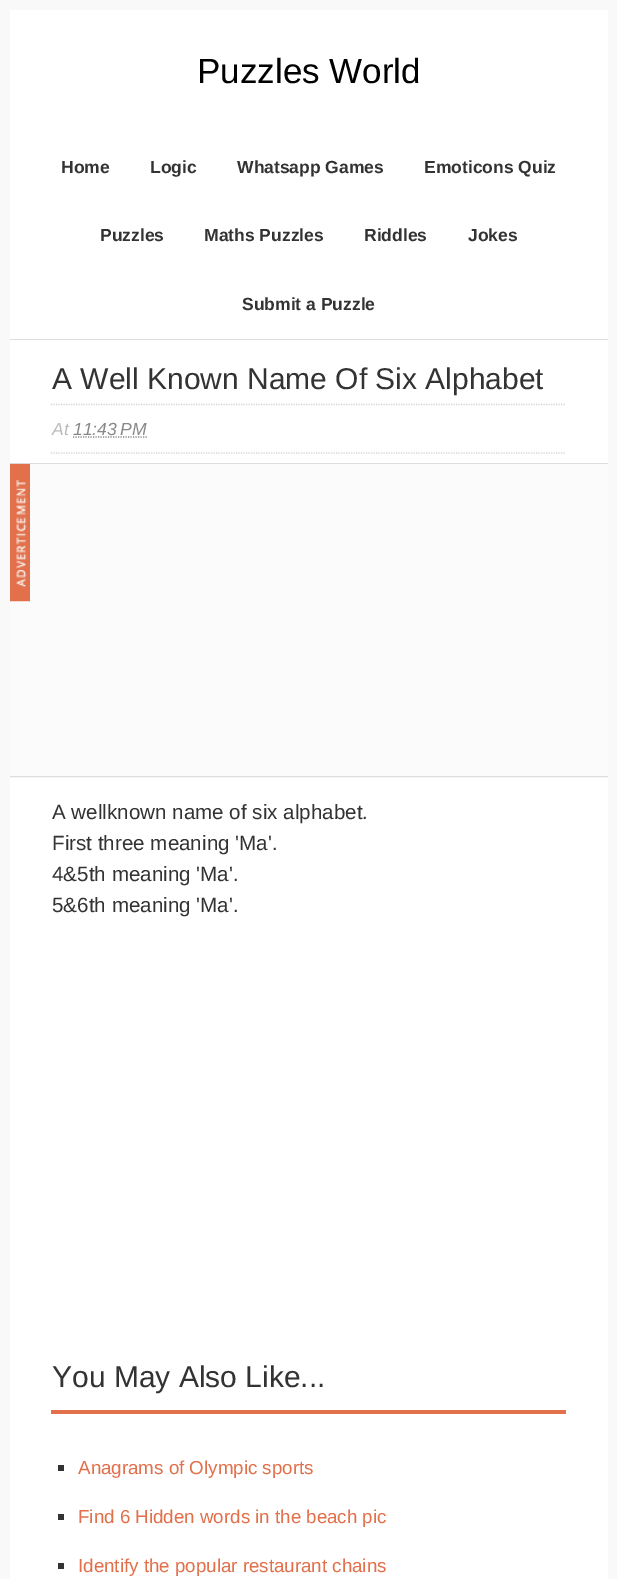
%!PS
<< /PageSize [617 1579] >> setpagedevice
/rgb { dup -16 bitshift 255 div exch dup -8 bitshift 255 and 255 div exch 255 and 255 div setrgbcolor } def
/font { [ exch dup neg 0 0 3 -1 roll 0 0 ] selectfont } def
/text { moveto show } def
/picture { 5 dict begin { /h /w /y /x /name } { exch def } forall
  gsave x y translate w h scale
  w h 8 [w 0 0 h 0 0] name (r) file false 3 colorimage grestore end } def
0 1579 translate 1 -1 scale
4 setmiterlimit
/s1 { /LiberationSans-Regular 35 font 16#000000 rgb } def
/s2 { /LiberationSans-Bold 17.5 font 16#333333 rgb } def
/s3 { /LiberationSans-Regular 30 font 16#333333 rgb } def
/s4 { /LiberationSans-Italic 17.5 font 16#BBBBBB rgb } def
/s5 { /LiberationSans-Italic 17.5 font 16#888888 rgb } def
/s6 { /LiberationSans-Regular 20.6 font 16#333333 rgb } def
/s7 { /LiberationSans-Regular 18.75 font 16#E1704B rgb } def
16#F9F9F9 rgb
0 0 617 1579 rectfill
16#FFFFFF rgb
10 10 598 329 rectfill
16#DDDDDD rgb
10 339 598 1 rectfill
s1
(Puzzles World) 197 83 text
s2
(Home) 61 173 text
(Logic) 150 173 text
(Whatsapp Games) 237 173 text
(Emoticons Quiz) 424 173 text
(Puzzles) 100 241 text
(Maths Puzzles) 204 241 text
(Riddles) 364 241 text
(Jokes) 468 241 text
(Submit a Puzzle) 242 310 text
16#FFFFFF rgb
10 340 598 1239 rectfill
s3
(A Well Known Name Of Six Alphabet) 52 389 text
16#D5D5D5 rgb
1.2 setlinewidth
[1.25 1.25] 0 setdash
51 404.5 moveto 566 404.5 lineto stroke
51 453 moveto 566 453 lineto stroke
s4
(At) 52 435 text
s5
(11:43 PM) 73 435 text
73 437 moveto 147 437 lineto stroke
16#F5F5F5 rgb
10 777 598 1 rectfill
16#DDDDDD rgb
10 463 598 1 rectfill
10 776 598 1 rectfill
16#FBFBFB rgb
10 464 598 312 rectfill
(pic1.raw) 10 463 20 139 picture
s6
(A wellknown name of six alphabet.) 52 819 text
(First three meaning 'Ma'.) 52 850 text
(4&5th meaning 'Ma'.) 52 881 text
(5&6th meaning 'Ma'.) 52 912 text
16#E1704B rgb
51 1410 515 4 rectfill
s3
(You May Also Like...) 52 1387 text
58 1465 6 6 rectfill
s7
(Anagrams of Olympic sports) 78 1474 text
16#333333 rgb
58 1514 6 6 rectfill
s7
(Find 6 Hidden words in the beach pic) 78 1523 text
16#333333 rgb
58 1563 6 6 rectfill
s7
(Identify the popular restaurant chains) 78 1572 text
showpage
